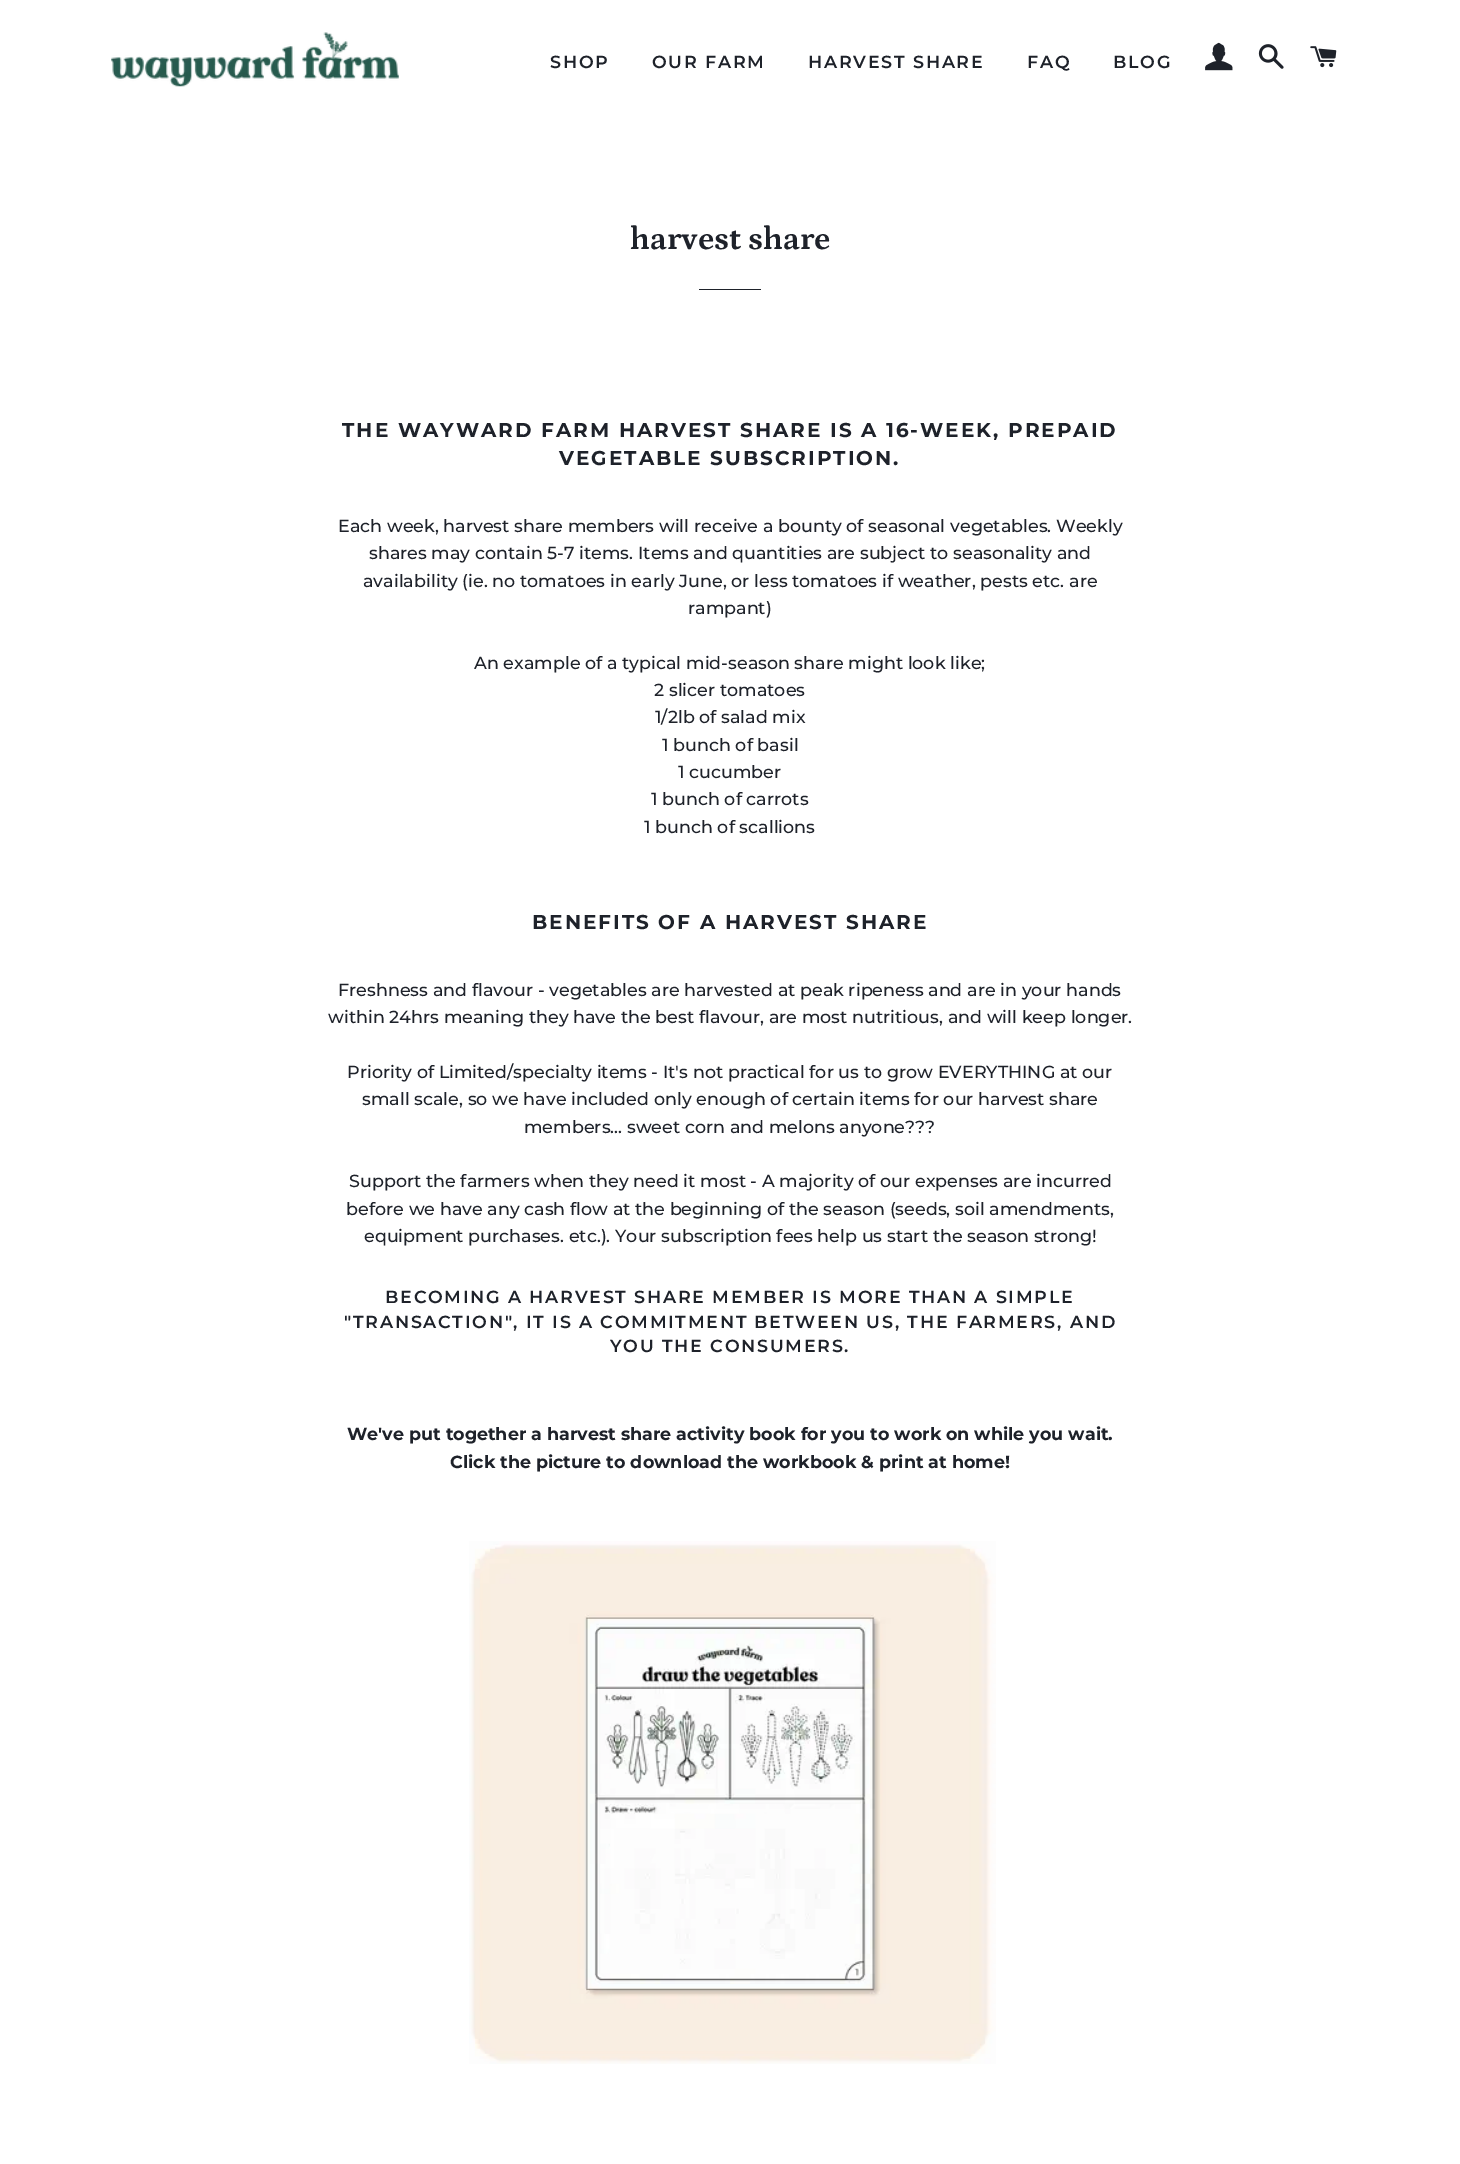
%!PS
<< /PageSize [1460 2164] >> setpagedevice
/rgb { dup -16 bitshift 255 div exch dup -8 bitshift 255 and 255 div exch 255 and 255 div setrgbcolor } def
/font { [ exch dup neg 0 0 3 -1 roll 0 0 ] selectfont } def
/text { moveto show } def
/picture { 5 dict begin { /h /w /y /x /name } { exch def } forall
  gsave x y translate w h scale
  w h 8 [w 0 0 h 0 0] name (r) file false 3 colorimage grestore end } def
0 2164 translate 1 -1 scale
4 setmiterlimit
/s1 { /Petrona-Bold 32.5 font 16#1E222A rgb } def
/s2 { /Montserrat-Medium 17.5 font 16#1E222A rgb } def
/s3 { /Montserrat-Bold 17.5 font 16#1E222A rgb } def
16#FFFFFF rgb
0 0 1460 2164 rectfill
(pic1.raw) 111 32 288 55 picture
/Montserrat-SemiBold 17.5 font
16#1E222A rgb
550 68 moveto 1.75 0 (SHOP) ashow
652 68 moveto 1.75 0 (OUR FARM) ashow
808 68 moveto 1.75 0 (HARVEST SHARE) ashow
1027 68 moveto 1.75 0 (FAQ) ashow
1113 68 moveto 1.75 0 (BLOG) ashow
(pic2.raw) 1205 42 28 29 picture
(pic3.raw) 1258 44 26 25 picture
(pic4.raw) 1310 46 27 22 picture
s1
(harvest share) 630 249 text
699 289 62 1 rectfill
/Montserrat-Bold 20 font
342 437 moveto 2 0 (THE WAYWARD FARM HARVEST SHARE IS A 16-WEEK, PREPAID) ashow
559 465 moveto 2 0 (VEGETABLE SUBSCRIPTION.) ashow
s2
(Each week, harvest share members will receive a bounty of seasonal vegetables. Weekly) 338 532 text
(shares may contain 5-7 items. Items and quantities are subject to seasonality and) 369 559 text
(availability \(ie. no tomatoes in early June, or less tomatoes if weather, pests etc. are) 363 587 text
(rampant\)) 688 614 text
(An example of a typical mid-season share might look like;) 474 669 text
(2 slicer tomatoes) 654 696 text
(1/2lb of salad mix) 655 723 text
(1 bunch of basil) 662 751 text
(1 cucumber) 678 778 text
(1 bunch of carrots) 651 805 text
(1 bunch of scallions) 644 833 text
/Montserrat-Bold 20 font
532 929 moveto 2 0 (BENEFITS OF A HARVEST SHARE) ashow
s2
(Freshness and flavour - vegetables are harvested at peak ripeness and are in your hands) 338 996 text
(within 24hrs meaning they have the best flavour, are most nutritious, and will keep longer.) 328 1023 text
(Priority of Limited/specialty items - It's not practical for us to grow EVERYTHING at our) 347 1078 text
(small scale, so we have included only enough of certain items for our harvest share) 362 1105 text
(members... sweet corn and melons anyone???) 524 1133 text
(Support the farmers when they need it most - A majority of our expenses are incurred) 349 1187 text
(before we have any cash flow at the beginning of the season \(seeds, soil amendments,) 346 1215 text
(equipment purchases. etc.\). Your subscription fees help us start the season strong!) 364 1242 text
/Montserrat-SemiBold 17.5 font
385 1303 moveto 1.75 0 (BECOMING A HARVEST SHARE MEMBER IS MORE THAN A SIMPLE) ashow
344 1328 moveto 1.75 0 ("TRANSACTION", IT IS A COMMITMENT BETWEEN US, THE FARMERS, AND) ashow
610 1352 moveto 1.75 0 (YOU THE CONSUMERS.) ashow
s3
(We've put together a harvest share activity book for you to work on while you wait.) 347 1440 text
(Click the picture to download the workbook & print at home!) 450 1468 text
(pic5.raw) 469 1541 527 523 picture
showpage
